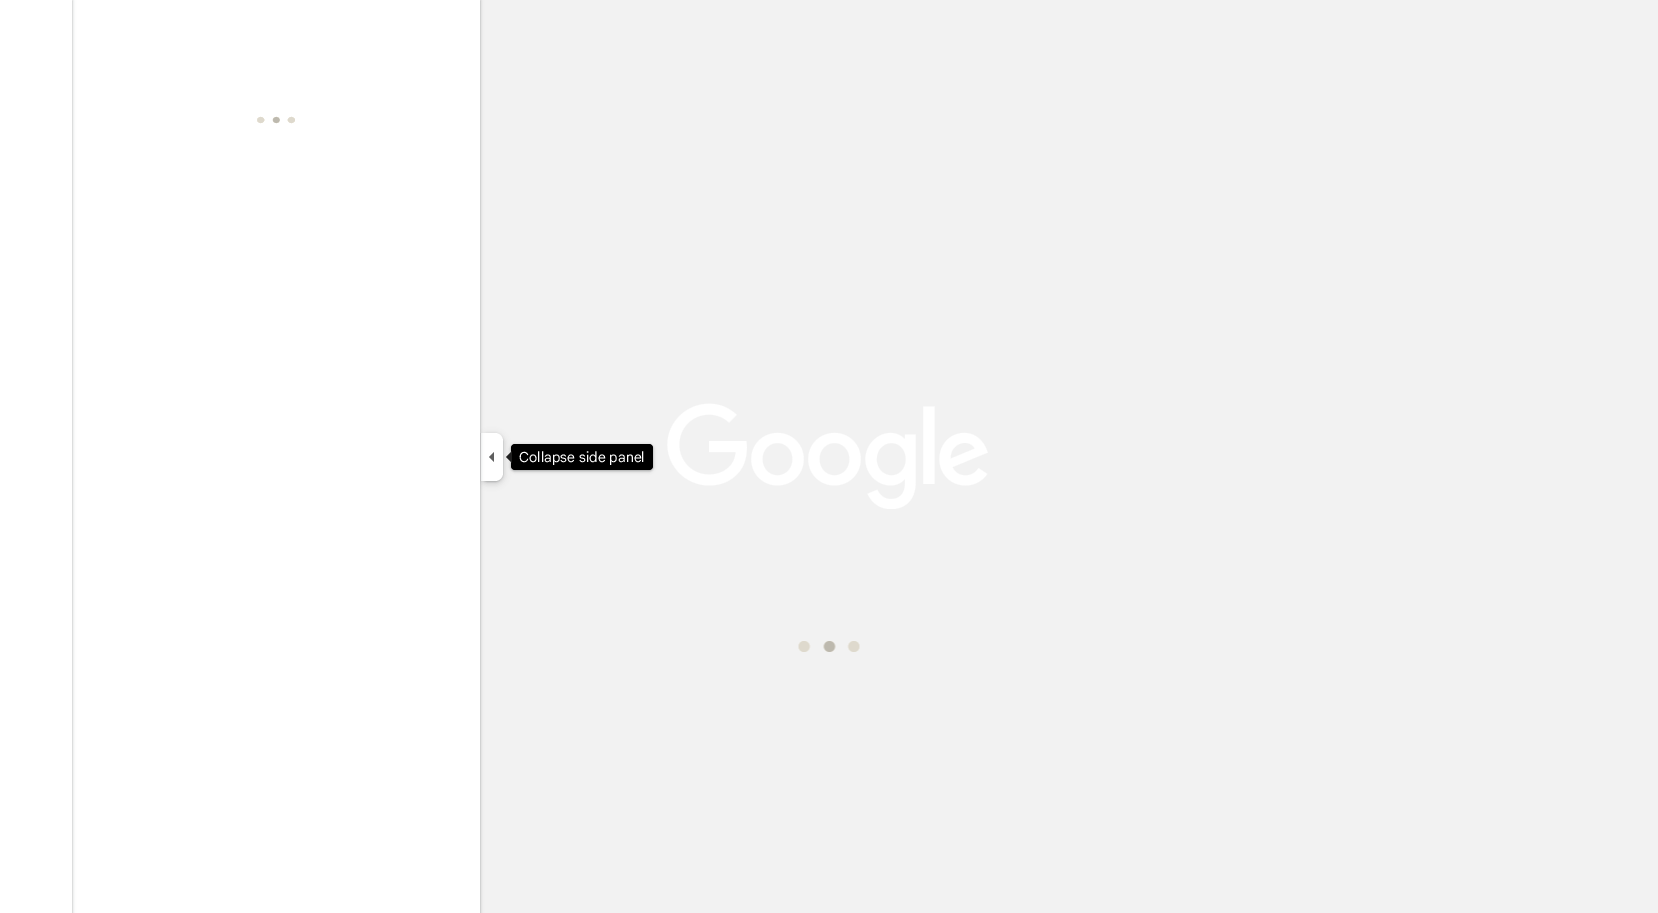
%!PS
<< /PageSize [1658 913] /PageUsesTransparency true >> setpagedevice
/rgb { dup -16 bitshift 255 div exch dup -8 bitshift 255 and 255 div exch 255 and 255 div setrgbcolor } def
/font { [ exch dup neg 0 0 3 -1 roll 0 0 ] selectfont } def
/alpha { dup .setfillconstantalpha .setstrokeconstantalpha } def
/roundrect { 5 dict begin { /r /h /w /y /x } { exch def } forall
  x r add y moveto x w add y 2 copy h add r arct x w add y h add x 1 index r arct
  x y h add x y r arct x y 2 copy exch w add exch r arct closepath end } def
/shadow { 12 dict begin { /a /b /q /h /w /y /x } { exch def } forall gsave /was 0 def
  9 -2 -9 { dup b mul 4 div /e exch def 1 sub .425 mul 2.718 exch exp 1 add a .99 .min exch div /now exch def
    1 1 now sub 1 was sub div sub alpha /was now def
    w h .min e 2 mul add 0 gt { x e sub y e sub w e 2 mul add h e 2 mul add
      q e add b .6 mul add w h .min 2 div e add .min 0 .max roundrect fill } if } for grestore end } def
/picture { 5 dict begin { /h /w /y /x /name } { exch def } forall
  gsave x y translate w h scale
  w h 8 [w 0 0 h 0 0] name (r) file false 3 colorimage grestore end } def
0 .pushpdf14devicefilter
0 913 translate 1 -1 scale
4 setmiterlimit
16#F2F2F2 rgb
0 0 1658 913 rectfill
16#3C4043 rgb
478 433 27 52 10 3 0.15 shadow
480 434 23 48 8 1 0.3 shadow
16#FFFFFF rgb
480 433 moveto 495 433 lineto 499.5 433 503 436.5 503 441 curveto 503 473 lineto 503 477.5 499.5 481 495 481 curveto 480 481 lineto closepath fill
16#E3E3E3 rgb
480 433 1 48 rectfill
16#3C4043 rgb
71 0 410 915 0 1.5 0.15 shadow
72 1 408 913 0 1 0.3 shadow
16#FFFFFF rgb
72 0 408 913 rectfill
16#3C4043 rgb
-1 0 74 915 0 1.5 0.15 shadow
0 1 72 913 0 1 0.3 shadow
16#FFFFFF rgb
0 0 72 913 rectfill
(pic1.raw) 257 116 38 8 picture
16#5E5E5E rgb
494 462 moveto 489 457 lineto 494 452 lineto closepath fill
16#3C4043 rgb
510 444 144 28 5 1.5 0.15 shadow
511 445 142 26 4 1 0.3 shadow
16#000000 rgb
511 444 142 26 4 roundrect fill
16#1F1F1F rgb
512 451 moveto 512 463 lineto 506 457 lineto closepath fill
/GoogleSans-Regular 14 font
16#FFFFFF rgb
519 462 moveto 0.1 0 (Collapse side panel) ashow
(pic2.raw) 667 403 321 106 picture
(pic3.raw) 798 641 62 11 picture
.poppdf14devicefilter showpage
